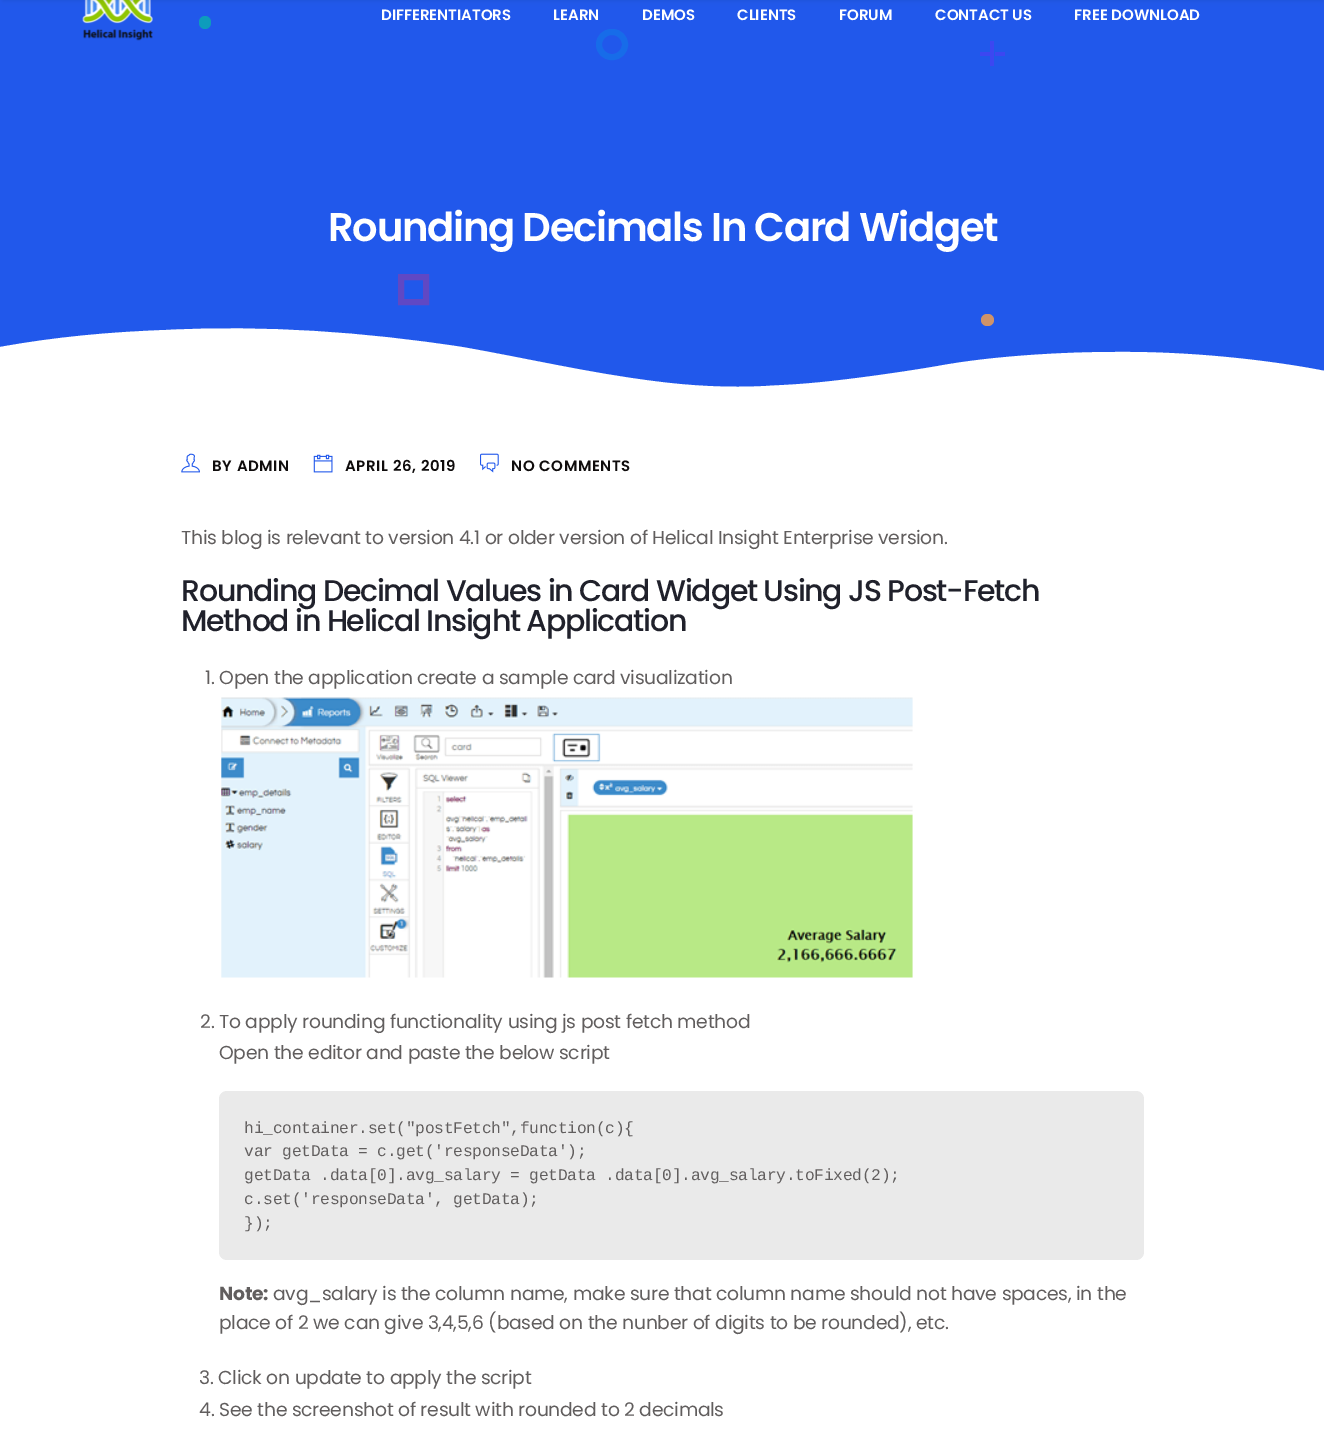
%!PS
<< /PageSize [1324 1435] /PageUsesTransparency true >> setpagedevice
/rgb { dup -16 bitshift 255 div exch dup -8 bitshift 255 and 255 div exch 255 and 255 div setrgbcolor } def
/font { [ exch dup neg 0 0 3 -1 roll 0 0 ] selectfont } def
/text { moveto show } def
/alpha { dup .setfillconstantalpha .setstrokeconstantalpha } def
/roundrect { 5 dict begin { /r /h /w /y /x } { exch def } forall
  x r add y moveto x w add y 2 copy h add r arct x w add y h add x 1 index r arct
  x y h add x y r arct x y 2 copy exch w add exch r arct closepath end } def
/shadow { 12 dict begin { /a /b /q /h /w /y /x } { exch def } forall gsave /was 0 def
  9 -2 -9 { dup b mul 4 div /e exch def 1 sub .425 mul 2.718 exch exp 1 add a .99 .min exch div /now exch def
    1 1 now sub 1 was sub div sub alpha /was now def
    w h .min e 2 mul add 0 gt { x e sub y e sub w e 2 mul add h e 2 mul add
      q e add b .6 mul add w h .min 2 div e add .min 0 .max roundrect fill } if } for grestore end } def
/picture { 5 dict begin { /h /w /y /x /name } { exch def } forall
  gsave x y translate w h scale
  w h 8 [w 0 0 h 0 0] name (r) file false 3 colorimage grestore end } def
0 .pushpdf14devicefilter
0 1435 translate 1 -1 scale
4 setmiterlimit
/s1 { /Poppins-SemiBold 15 font 16#FFFFFF rgb } def
16#FFFFFF rgb
0 0 1324 1435 rectfill
16#2158EB rgb
0 0 1324 387 rectfill
(pic1.raw) 82 0 71 41 picture
16#000000 rgb
3 -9 1320 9 0 3 0.1 shadow
s1
(DIFFERENTIATORS) 381 20 text
(LEARN) 553 20 text
(DEMOS) 642 20 text
(CLIENTS) 737 20 text
(FORUM) 839 20 text
(CONTACT US) 935 20 text
(FREE DOWNLOAD) 1074 20 text
16#0D9CBC rgb
199 16 12 13 6 roundrect fill
16#176CE9 rgb
6 setlinewidth
599 32 26 25 12.5 roundrect stroke
16#3C47F1 rgb
990 41 4 25 rectfill
980 52 10 4 rectfill
995 52 10 4 rectfill
16#6048C4 rgb
401 277 25 25 rectstroke
16#D09369 rgb
981 314 13 12 6 roundrect fill
/Poppins-SemiBold 40 font
16#FFFFFF rgb
328 241 moveto -1.25 0 (Rounding Decimals In Card Widget) ashow
766 386 moveto 729 388 690 386 653 381 curveto 589 373 525 358 462 347 curveto 364 332 265 325 166 330 curveto 110 332 55 337 0 347 curveto 0 390 lineto 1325 390 lineto 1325 371 lineto 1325 371 1230 351 1115 352 curveto 1063 352 992 356 938 366 curveto 909 371 868 377 832 381 curveto 796 385 780 385 766 386 curveto closepath fill
(pic2.raw) 181 453 19 20 picture
/Poppins-SemiBold 15 font
16#0F0C0C rgb
212 471 moveto 0.6 0 (BY ADMIN) ashow
(pic3.raw) 313 454 20 19 picture
345 471 moveto 0.6 0 (APRIL 26, 2019) ashow
(pic4.raw) 480 453 19 20 picture
511 471 moveto 0.6 0 (NO COMMENTS) ashow
/Poppins-Regular 18.75 font
16#615E5E rgb
181 544 moveto -0.25 0 (This blog is relevant to version 4.1 or older version of Helical Insight Enterprise version.) ashow
/Poppins-Medium 30 font
16#20212B rgb
181 601 moveto -1.25 0 (Rounding Decimal Values in Card Widget Using JS Post-Fetch) ashow
181 631 moveto -1.25 0 (Method in Helical Insight Application) ashow
/Poppins-Regular 18.75 font
16#615E5E rgb
205 684 moveto -0.25 0 (1. Open the application create a sample card visualization) ashow
(pic5.raw) 221 697 692 281 picture
200 1028 moveto -0.25 0 (2. To apply rounding functionality using js post fetch method) ashow
219 1059 moveto -0.25 0 (Open the editor and paste the below script) ashow
16#EAEAEA rgb
219 1091 925 169 8 roundrect fill
/LiberationMono-Regular 16.25 font
16#615E5E rgb
244 1133 moveto -0.25 0 (hi_container.set\("postFetch",function\(c\){) ashow
244 1156 moveto -0.25 0 (var getData = c.get\('responseData'\);) ashow
244 1180 moveto -0.25 0 (getData .data[0].avg_salary = getData .data[0].avg_salary.toFixed\(2\);) ashow
244 1204 moveto -0.25 0 (c.set\('responseData', getData\);) ashow
244 1228 moveto -0.25 0 (}\);) ashow
/Poppins-Bold 18.75 font
219 1300 moveto -0.25 0 (Note:) ashow
/Poppins-Regular 18.75 font
273 1300 moveto -0.25 0 (avg_salary is the column name, make sure that column name should not have spaces, in the) ashow
219 1329 moveto -0.25 0 (place of 2 we can give 3,4,5,6 \(based on the nunber of digits to be rounded\), etc.) ashow
199 1384 moveto -0.25 0 (3. Click on update to apply the script) ashow
199 1416 moveto -0.25 0 (4. See the screenshot of result with rounded to 2 decimals) ashow
.poppdf14devicefilter showpage
